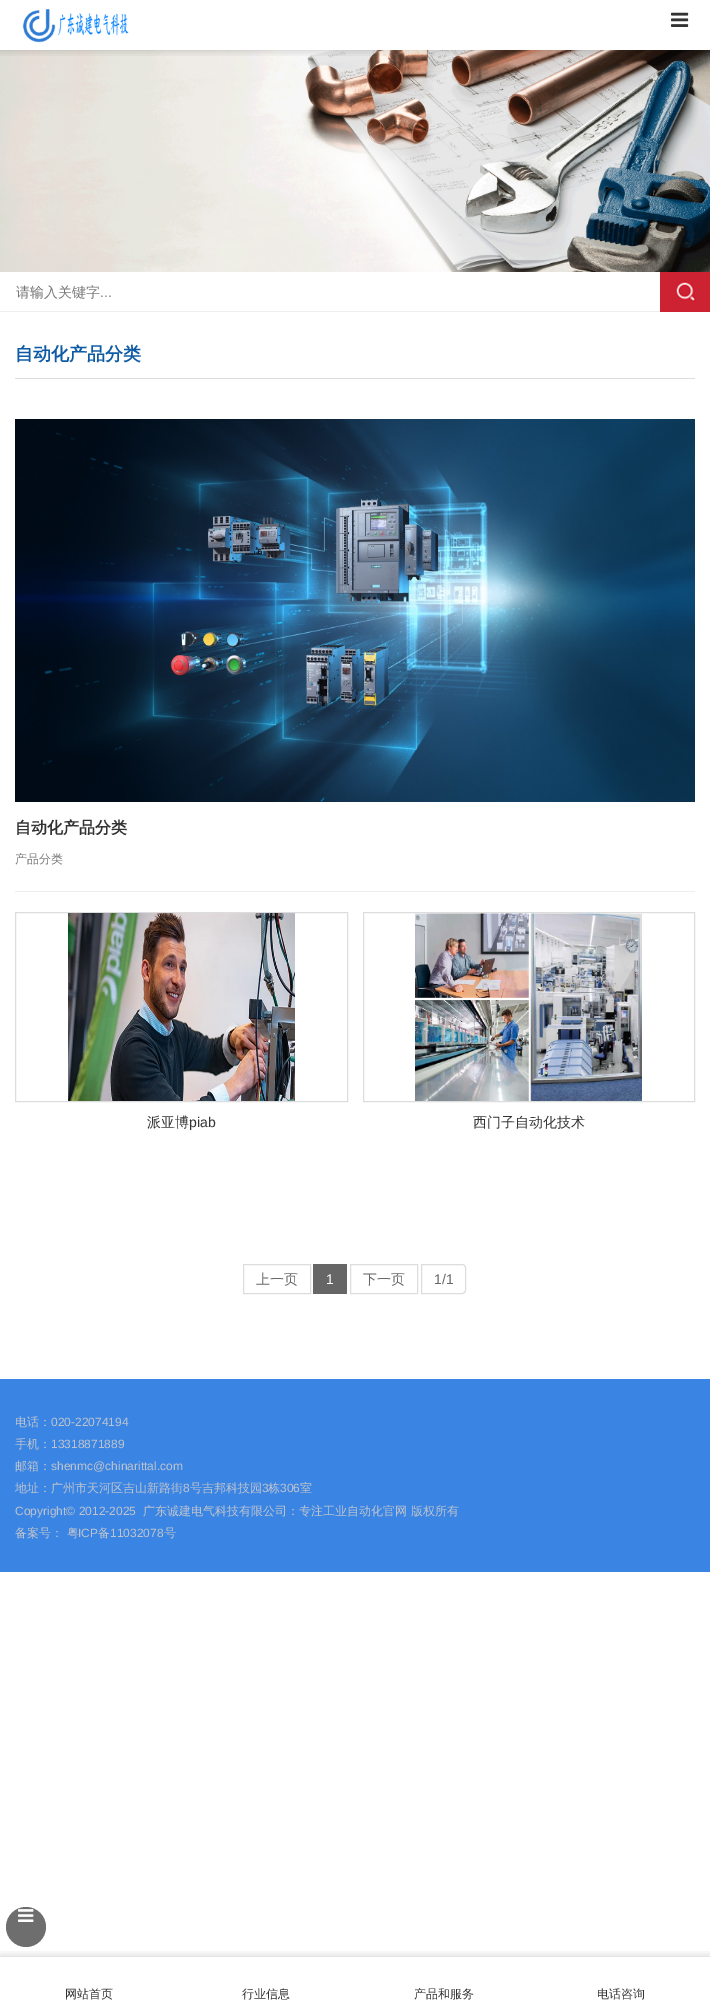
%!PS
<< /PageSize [710 2007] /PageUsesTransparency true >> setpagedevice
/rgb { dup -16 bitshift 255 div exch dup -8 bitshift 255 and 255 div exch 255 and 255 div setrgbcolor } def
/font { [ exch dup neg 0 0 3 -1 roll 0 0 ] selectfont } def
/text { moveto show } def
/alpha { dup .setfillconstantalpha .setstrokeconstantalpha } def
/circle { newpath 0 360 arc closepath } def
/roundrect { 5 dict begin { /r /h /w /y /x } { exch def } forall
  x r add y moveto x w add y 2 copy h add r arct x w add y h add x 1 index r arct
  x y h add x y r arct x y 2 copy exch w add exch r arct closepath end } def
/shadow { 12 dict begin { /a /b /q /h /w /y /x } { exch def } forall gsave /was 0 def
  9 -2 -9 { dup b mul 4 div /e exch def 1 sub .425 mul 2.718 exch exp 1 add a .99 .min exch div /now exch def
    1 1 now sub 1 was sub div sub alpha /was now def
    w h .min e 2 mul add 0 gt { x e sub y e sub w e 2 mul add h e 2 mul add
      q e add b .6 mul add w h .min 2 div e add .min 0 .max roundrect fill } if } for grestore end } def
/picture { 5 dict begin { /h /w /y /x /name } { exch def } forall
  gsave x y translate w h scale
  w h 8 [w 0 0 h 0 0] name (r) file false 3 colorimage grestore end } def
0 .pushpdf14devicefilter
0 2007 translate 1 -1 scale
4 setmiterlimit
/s1 { /WenQuanYiZenHei-Medium 14 font 16#777777 rgb } def
/s2 { /LiberationSans-Regular 14 font 16#777777 rgb } def
/s3 { /WenQuanYiZenHei-Bold 18 font 16#0D5BA4 rgb } def
/s4 { /WenQuanYiZenHei-Bold 16 font 16#333333 rgb } def
/s5 { /WenQuanYiZenHei-Medium 12 font 16#777777 rgb } def
/s6 { /WenQuanYiZenHei-Medium 14 font 16#333333 rgb } def
/s7 { /LiberationSans-Regular 14 font 16#333333 rgb } def
/s8 { /WenQuanYiZenHei-Medium 14 font 16#666666 rgb } def
/s9 { /LiberationSans-Regular 14 font 16#FFFFFF rgb } def
/s10 { /LiberationSans-Regular 14 font 16#666666 rgb } def
/s11 { /WenQuanYiZenHei-Medium 12 font 16#BEC3CC rgb } def
/s12 { /LiberationSans-Regular 12 font 16#BEC3CC rgb } def
/s13 { /WenQuanYiZenHei-Medium 12 font 16#333333 rgb } def
16#FFFFFF rgb
0 0 710 2007 rectfill
(pic3.raw) 0 50 710 222 picture
gsave
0 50 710 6 rectclip
16#000000 rgb
0 0 710 50 0 5 0.2 shadow
grestore
(pic1.raw) 22 9 107 34 picture
(pic2.raw) 671 12 18 15 picture
16#EEEEEE rgb
710 312 moveto 0 312 lineto 1 311 lineto 709 311 lineto closepath fill
s1
(请输入关键字) 16 297 text
s2
(...) 100 297 text
16#CC2231 rgb
660 272 50 40 rectfill
(pic4.raw) 675 281 21 21 picture
16#DDDDDD rgb
15 378 680 1 rectfill
s3
(自动化产品分类) 15 360 text
16#EEEEEE rgb
15 891 680 1 rectfill
(pic5.raw) 15 419 680 383 picture
s4
(自动化产品分类) 15 833 text
s5
(产品分类) 15 863 text
16#DDDDDD rgb
15.5 912.5 332 189 rectstroke
(pic6.raw) 68 913 227 188 picture
s6
(派亚博) 147 1127 text
s7
(piab) 189 1127 text
16#DDDDDD rgb
363.5 912.5 331 189 rectstroke
(pic7.raw) 415 913 227 188 picture
s6
(西门子自动化技术) 473 1127 text
16#DDDDDD rgb
243.5 1264.5 67 29 rectstroke
s8
(上一页) 256 1284 text
313 1264 34 30 rectfill
s9
(1) 326 1284 text
16#DDDDDD rgb
350.5 1264.5 67 29 rectstroke
s8
(下一页) 363 1284 text
16#DDDDDD rgb
421.5 1264.5 moveto 462 1264.5 lineto 464 1264.5 465.5 1266 465.5 1268 curveto 465.5 1290 lineto 465.5 1292 464 1293.5 462 1293.5 curveto 421.5 1293.5 lineto closepath stroke
s10
(1/1) 434 1284 text
16#3A85E4 rgb
0 1379 710 193 rectfill
s11
(电话：) 15 1426 text
s12
(020-22074194) 51 1426 text
s11
(手机：) 15 1448 text
s12
(13318871889) 51 1448 text
s11
(邮箱：) 15 1470 text
s12
(shenmc@chinarittal.com) 51 1470 text
s11
(地址：广州市天河区吉山新路街) 15 1492 text
s12
(8) 183 1492 text
s11
(号吉邦科技园) 190 1492 text
s12
(3) 262 1492 text
s11
(栋) 268 1492 text
s12
(306) 280 1492 text
s11
(室) 300 1492 text
s12
(Copyright© 2012-2025) 15 1515 text
s11
(广东诚建电气科技有限公司：专注工业自动化官网 版权所有) 143 1515 text
(备案号： 粤) 15 1537 text
s12
(ICP) 78 1537 text
s11
(备) 98 1537 text
s12
(11032078) 110 1537 text
s11
(号) 164 1537 text
gsave
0 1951 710 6 rectclip
16#000000 rgb
0 1957 710 50 0 5 0.2 shadow
grestore
16#6E6E6E rgb
26 1927 20 circle fill
(pic8.raw) 18 1909 16 13 picture
s13
(网站首页) 65 1998 text
(行业信息) 242 1998 text
(产品和服务) 414 1998 text
(电话咨询) 597 1998 text
.poppdf14devicefilter showpage
